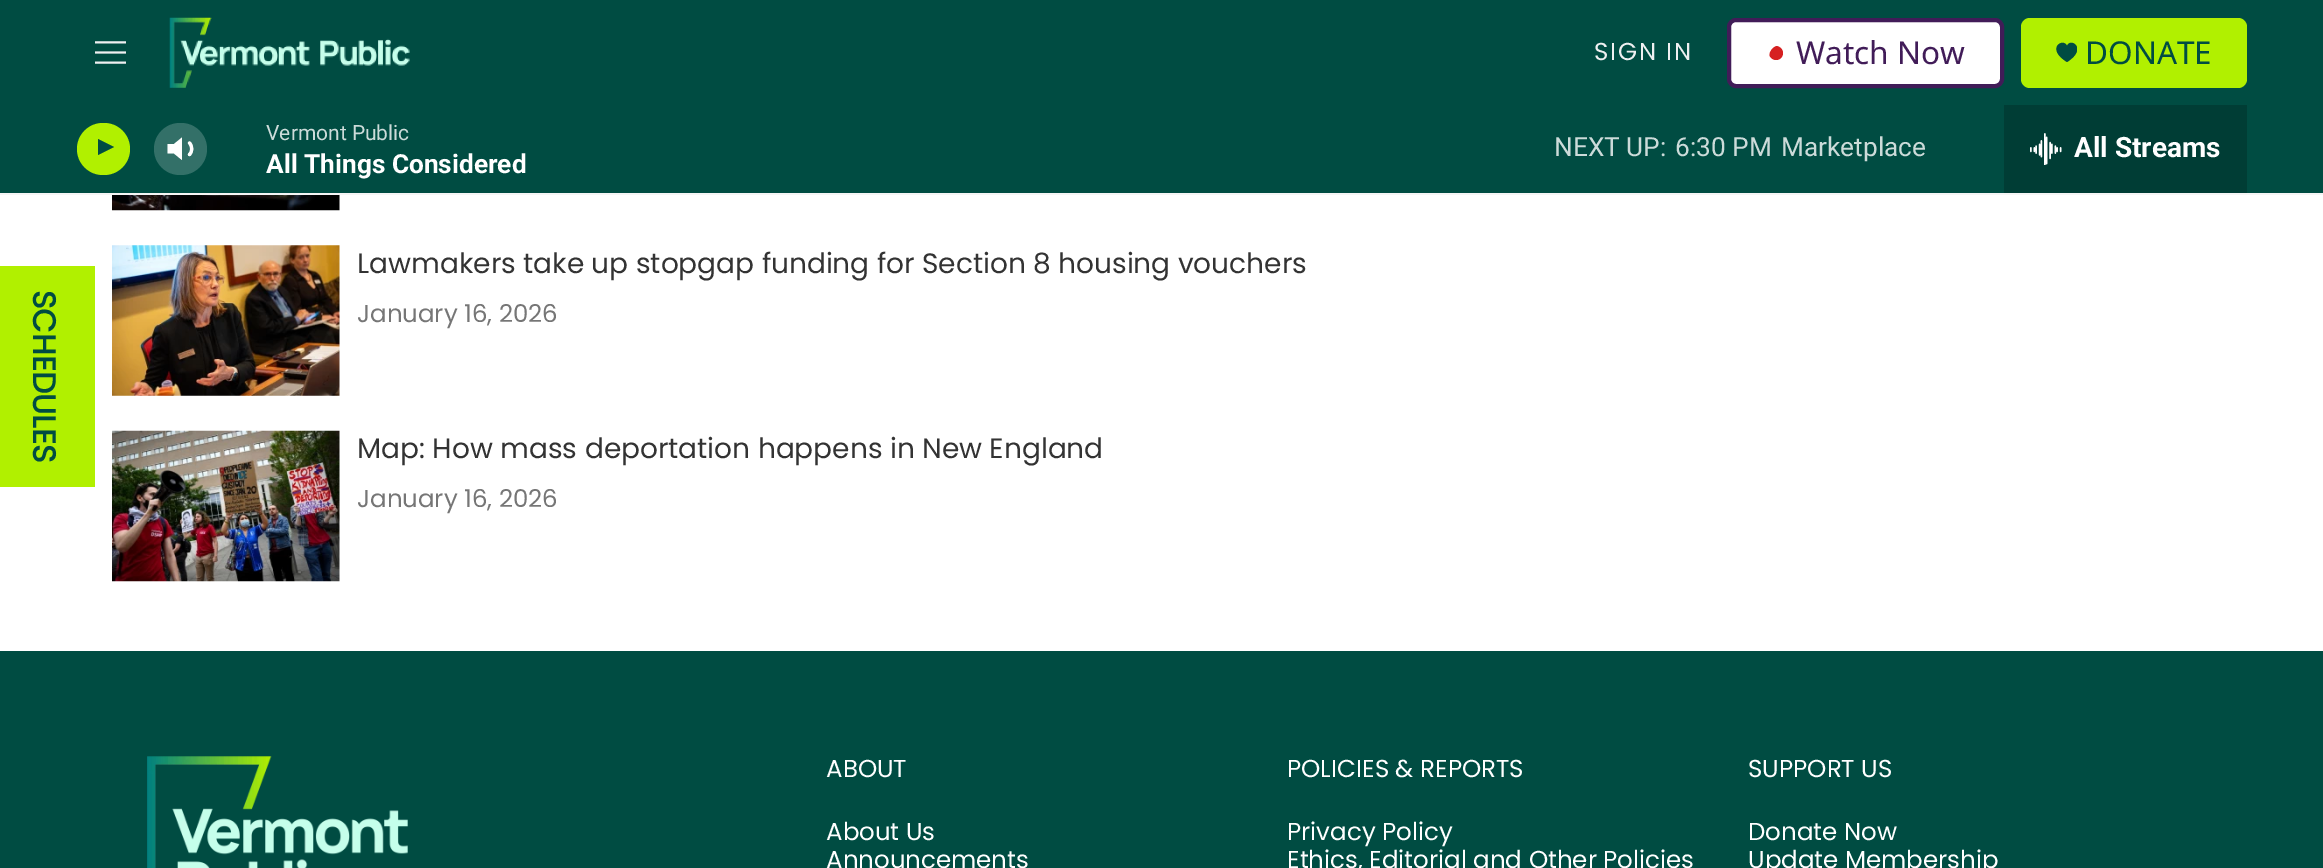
%!PS
<< /PageSize [2323 868] /PageUsesTransparency true >> setpagedevice
/rgb { dup -16 bitshift 255 div exch dup -8 bitshift 255 and 255 div exch 255 and 255 div setrgbcolor } def
/font { [ exch dup neg 0 0 3 -1 roll 0 0 ] selectfont } def
/text { moveto show } def
/alpha { dup .setfillconstantalpha .setstrokeconstantalpha } def
/roundrect { 5 dict begin { /r /h /w /y /x } { exch def } forall
  x r add y moveto x w add y 2 copy h add r arct x w add y h add x 1 index r arct
  x y h add x y r arct x y 2 copy exch w add exch r arct closepath end } def
/picture { 5 dict begin { /h /w /y /x /name } { exch def } forall
  gsave x y translate w h scale
  w h 8 [w 0 0 h 0 0] name (r) file false 3 colorimage grestore end } def
0 .pushpdf14devicefilter
0 868 translate 1 -1 scale
4 setmiterlimit
/s1 { /NotoSans-Regular 31.5 font 16#411C58 rgb } def
/s2 { /NotoSans-Regular 31.5 font 16#004C42 rgb } def
/s3 { /Roboto-Regular 21 font 16#CCDBD9 rgb } def
/s4 { /Roboto-Bold 26.25 font 16#FFFFFF rgb } def
/s5 { /Roboto-Regular 26.25 font 16#CCDBD9 rgb } def
/s6 { /Roboto-Bold 28 font 16#FFFFFF rgb } def
/s7 { /Poppins-Regular 28 font 16#333333 rgb } def
/s8 { /Poppins-Regular 24.5 font 16#767676 rgb } def
/s9 { /Poppins-Regular 24.5 font 16#FFFFFF rgb } def
16#FFFFFF rgb
0 0 2323 868 rectfill
16#004C42 rgb
0 0 2323 193 rectfill
16#F5F5F5 rgb
0 193 2323 2 rectfill
(pic1.raw) 95 41 31 23 picture
(pic2.raw) 169 17 241 71 picture
/Poppins-Regular 24.5 font
16#EFF0F1 rgb
1594 60 moveto 1.75 0 (SIGN IN) ashow
16#FFFFFF rgb
1729 20 273 66 7 roundrect gsave fill grestore
16#411C58 rgb
4 setlinewidth
stroke
16#D62021 rgb
1769.5 55.5 moveto 1769.5 51 1772.5 47.5 1776.5 46 curveto 1780 46.5 1783 49.5 1783 53 curveto 1783 57 1780 60 1776 60 curveto 1773 60 1770.5 58 1769.5 55.5 curveto closepath fill
s1
(Watch Now) 1796 64 text
16#B1F000 rgb
2021 18 226 70 9 roundrect fill
gsave
2056 42 21 21 rectclip
16#004C42 rgb
2067 46 moveto 2063.5 37 2045 48.5 2067 62 curveto 2088.5 48.5 2070 37 2067 46 curveto closepath fill
grestore
s2
(DONATE) 2085 64 text
16#B1F000 rgb
77 123 53 52 26 roundrect fill
gsave
98 137 20 26 rectclip
16#004C42 rgb
97 138.5 moveto 114 147 lineto 97 155.5 lineto closepath fill
grestore
16#FFFFFF rgb
182 137.5 moveto 174 144 lineto 167.5 144 lineto 167.5 153.5 lineto 174 153.5 lineto 182 160 lineto closepath fill
3.2 setlinewidth
1 setlinecap
1 setlinejoin
189.5 143 moveto 192.5 146.5 192.5 151.5 189.5 154.5 curveto stroke
0.2 alpha
154 123 53 52 26 roundrect fill
1 alpha
s3
(Vermont Public) 266 140 text
s4
(All Things Considered) 266 173 text
s5
(NEXT UP:) 1554 156 text
(6:30 PM) 1675 156 text
(Marketplace) 1781 156 text
16#003D35 rgb
2004 105 243 88 rectfill
(pic3.raw) 2030 133 32 32 picture
s6
(All Streams) 2074 157 text
16#B1F000 rgb
0 266 95 221 rectfill
/Poppins-Bold 31.5 font
16#004C42 rgb
gsave 33 290 translate 90 rotate 0 0 moveto (SCHEDULES) show grestore
(pic4.raw) 112 195 228 16 picture
(pic5.raw) 112 245 228 151 picture
s7
(Lawmakers take up stopgap funding for Section 8 housing vouchers) 357 273 text
s8
(January 16, 2026) 357 322 text
(pic6.raw) 112 430 228 152 picture
s7
(Map: How mass deportation happens in New England) 357 458 text
s8
(January 16, 2026) 357 507 text
16#004C42 rgb
0 651 2323 217 rectfill
(pic7.raw) 147 756 261 112 picture
s9
(ABOUT) 826 777 text
(About Us) 826 840 text
(Announcements) 826 868 text
(POLICIES & REPORTS) 1287 777 text
(Privacy Policy) 1287 840 text
(Ethics, Editorial and Other Policies) 1287 868 text
(SUPPORT US) 1748 777 text
(Donate Now) 1748 840 text
(Update Membership) 1748 868 text
.poppdf14devicefilter showpage
